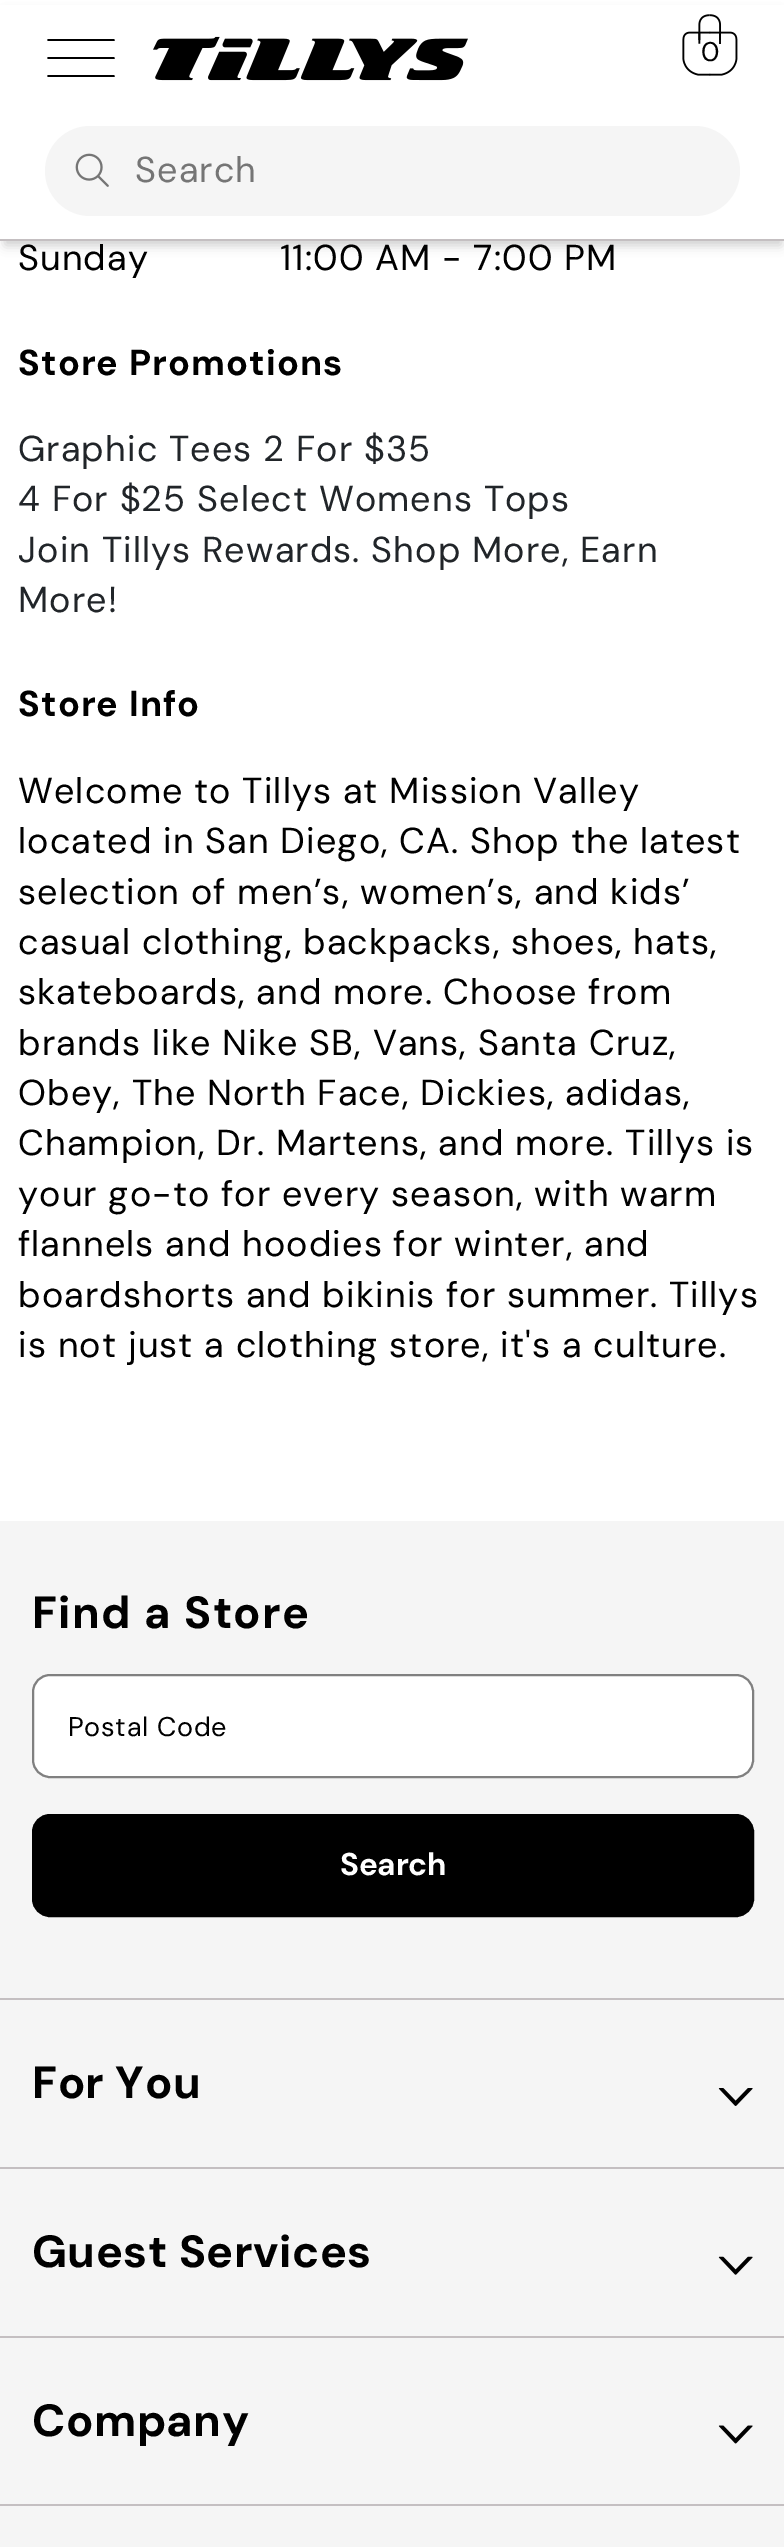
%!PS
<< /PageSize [784 2547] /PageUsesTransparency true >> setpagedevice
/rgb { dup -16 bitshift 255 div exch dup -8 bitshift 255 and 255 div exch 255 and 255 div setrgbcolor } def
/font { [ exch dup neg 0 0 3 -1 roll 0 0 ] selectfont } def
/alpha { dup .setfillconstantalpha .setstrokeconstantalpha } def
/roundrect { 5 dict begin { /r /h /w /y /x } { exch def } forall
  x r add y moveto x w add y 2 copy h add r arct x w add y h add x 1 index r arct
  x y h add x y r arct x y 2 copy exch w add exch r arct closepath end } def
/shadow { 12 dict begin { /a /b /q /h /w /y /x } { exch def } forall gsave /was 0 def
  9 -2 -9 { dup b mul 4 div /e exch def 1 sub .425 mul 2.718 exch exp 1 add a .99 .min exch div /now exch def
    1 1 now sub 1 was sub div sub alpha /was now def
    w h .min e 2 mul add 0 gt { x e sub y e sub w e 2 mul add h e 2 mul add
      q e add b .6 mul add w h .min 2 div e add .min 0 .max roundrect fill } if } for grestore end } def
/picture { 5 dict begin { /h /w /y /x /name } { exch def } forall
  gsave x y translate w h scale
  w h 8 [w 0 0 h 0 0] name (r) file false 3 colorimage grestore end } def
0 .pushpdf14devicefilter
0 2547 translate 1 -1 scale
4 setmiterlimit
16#FFFFFF rgb
0 0 784 2547 rectfill
16#000000 rgb
5 14 776 231 0 5.5 0.2 shadow
16#FFFFFF rgb
0 5 784 234 rectfill
16#000000 rgb
114 59 moveto 48 59 lineto 47 58 lineto 48 57 lineto 114 57 lineto 115 58 115 59 114 59 curveto closepath 114 41 moveto 48 41 lineto 47 40 lineto 48 39 lineto 114 39 lineto 115 40 115 41 114 41 curveto closepath 114 77 moveto 48 77 lineto 47 76 lineto 48 75 lineto 114 75 lineto 115 76 115 77 114 77 curveto closepath fill
(pic1.raw) 153 36 315 45 picture
(pic2.raw) 682 14 56 62 picture
/DMSans-Regular 27 font
701 61 moveto 1.1 0 (0) ashow
16#F5F5F5 rgb
45 126 695 90 45 roundrect fill
(pic3.raw) 75 153 34 34 picture
/DMSans-Regular 36 font
16#757575 rgb
135 182 moveto 1.1 0 (Search) ashow
16#C4BFC1 rgb
0 239 784 2 rectfill
16#000000 rgb
18 270 moveto 1.1 0 (Sunday) ashow
280 270 moveto 1.1 0 (11:00 AM - 7:00 PM) ashow
/DMSans-Bold 36 font
18 375 moveto 1.1 0 (Store Promotions) ashow
/DMSans-Regular 36 font
16#212529 rgb
18 461 moveto 1.1 0 (Graphic Tees 2 For $35) ashow
18 511 moveto 1.1 0 (4 For $25 Select Womens Tops) ashow
18 562 moveto 1.1 0 (Join Tillys Rewards. Shop More, Earn) ashow
18 612 moveto 1.1 0 (More!) ashow
/DMSans-Bold 36 font
16#000000 rgb
18 716 moveto 1.1 0 (Store Info) ashow
/DMSans-Regular 36 font
18 803 moveto 1.1 0 (Welcome to Tillys at Mission Valley) ashow
18 853 moveto 1.1 0 (located in San Diego, CA. Shop the latest) ashow
18 904 moveto 1.1 0 (selection of men’s, women’s, and kids’) ashow
18 954 moveto 1.1 0 (casual clothing, backpacks, shoes, hats,) ashow
18 1004 moveto 1.1 0 (skateboards, and more. Choose from) ashow
18 1055 moveto 1.1 0 (brands like Nike SB, Vans, Santa Cruz,) ashow
18 1105 moveto 1.1 0 (Obey, The North Face, Dickies, adidas,) ashow
18 1155 moveto 1.1 0 (Champion, Dr. Martens, and more. Tillys is) ashow
18 1206 moveto 1.1 0 (your go-to for every season, with warm) ashow
18 1256 moveto 1.1 0 (flannels and hoodies for winter, and) ashow
18 1307 moveto 1.1 0 (boardshorts and bikinis for summer. Tillys) ashow
18 1357 moveto 1.1 0 (is not just a clothing store, it's a culture.) ashow
16#F5F5F5 rgb
0 1521 784 1026 rectfill
16#C4BFC1 rgb
0 1998 784 2 rectfill
/DMSans-Bold 45 font
16#000000 rgb
32 1628 moveto 1.4 0 (Find a Store) ashow
16#FFFFFF rgb
33 1675 720 102 17 roundrect gsave fill grestore
16#808080 rgb
2 setlinewidth
stroke
/DMSans-Regular 27 font
16#000000 rgb
68 1736 moveto 0.75 0 (Postal Code) ashow
33 1815 720 101 17 roundrect gsave fill grestore
stroke
/DMSans-Bold 31.5 font
16#FFFFFF rgb
340 1875 moveto -0.25 0 (Search) ashow
16#C4BFC1 rgb
0 2167 784 2 rectfill
/DMSans-Bold 45 font
16#000000 rgb
32 2098 moveto 0.5 0 (For You) ashow
(pic4.raw) 718 2088 35 18 picture
16#C4BFC1 rgb
0 2336 784 2 rectfill
16#000000 rgb
32 2267 moveto 0.5 0 (Guest Services) ashow
(pic5.raw) 718 2256 35 19 picture
16#C4BFC1 rgb
0 2504 784 2 rectfill
16#000000 rgb
32 2436 moveto 0.5 0 (Company) ashow
(pic6.raw) 718 2425 35 19 picture
.poppdf14devicefilter showpage
